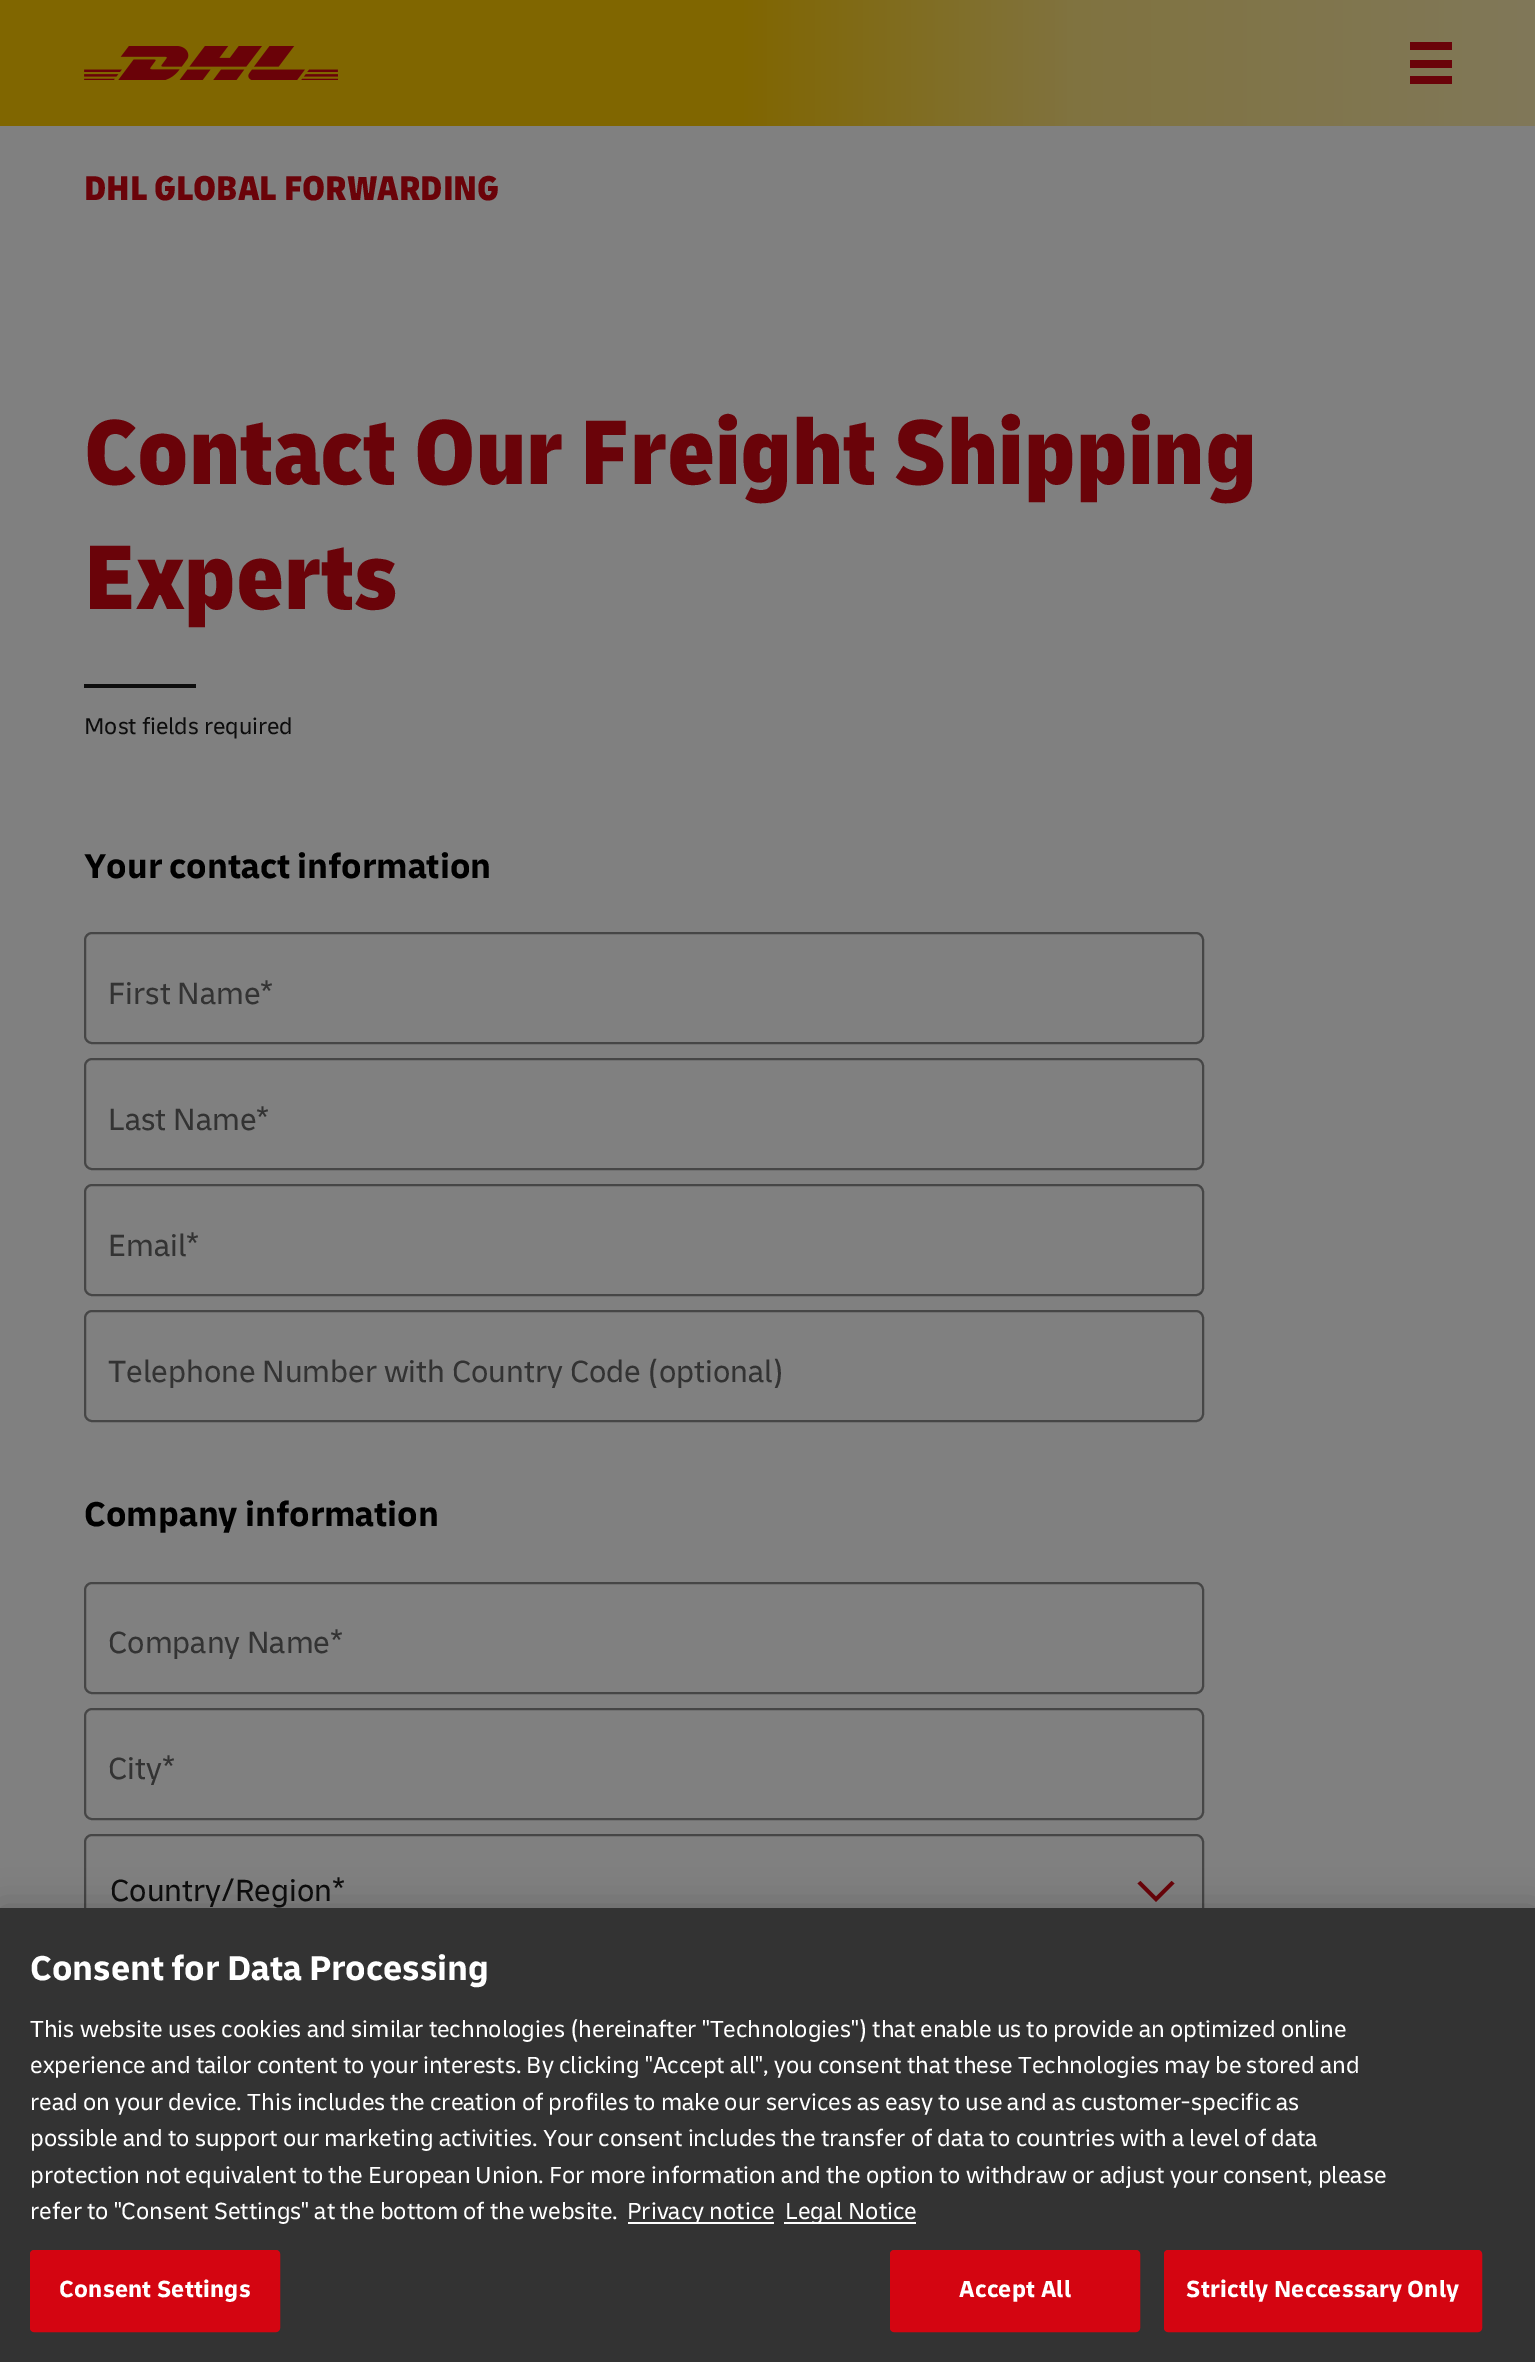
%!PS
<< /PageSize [1535 2362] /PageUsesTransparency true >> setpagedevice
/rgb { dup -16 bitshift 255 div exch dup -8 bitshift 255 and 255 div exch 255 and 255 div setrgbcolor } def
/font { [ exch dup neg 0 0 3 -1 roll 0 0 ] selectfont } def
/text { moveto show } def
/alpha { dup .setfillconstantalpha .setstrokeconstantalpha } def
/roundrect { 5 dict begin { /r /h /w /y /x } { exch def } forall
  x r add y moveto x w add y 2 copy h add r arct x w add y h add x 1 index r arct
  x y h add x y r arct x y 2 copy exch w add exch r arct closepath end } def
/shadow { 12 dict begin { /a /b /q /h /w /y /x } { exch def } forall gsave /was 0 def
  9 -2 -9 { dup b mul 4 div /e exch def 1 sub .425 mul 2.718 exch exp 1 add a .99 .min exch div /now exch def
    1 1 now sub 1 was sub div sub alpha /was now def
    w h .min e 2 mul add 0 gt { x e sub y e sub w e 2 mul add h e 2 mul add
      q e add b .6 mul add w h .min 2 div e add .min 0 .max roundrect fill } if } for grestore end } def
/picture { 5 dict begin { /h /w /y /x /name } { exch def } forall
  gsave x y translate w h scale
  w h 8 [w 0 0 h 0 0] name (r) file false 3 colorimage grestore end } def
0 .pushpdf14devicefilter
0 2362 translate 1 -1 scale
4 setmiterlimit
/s1 { /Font-ExtraBold 36 font 16#6A0309 rgb } def
/s2 { /Font-ExtraBold 96 font 16#6A0309 rgb } def
/s3 { /Font-Regular 24 font 16#0D0D0D rgb } def
/s4 { /Font-Bold 36 font 16#000000 rgb } def
/s5 { /Font-Regular 32 font 16#333333 rgb } def
/s6 { /Font-Regular 32 font 16#0D0D0D rgb } def
/s7 { /Font-Bold 36 font 16#FFFFFF rgb } def
/s8 { /Font-Regular 24.4 font 16#FFFFFF rgb } def
16#808080 rgb
0 0 1535 2362 rectfill
gsave 0 0 moveto 1535 0 lineto 1535 126 lineto 0 126 lineto closepath clip newpath
<< /ShadingType 2 /ColorSpace /DeviceRGB /Coords [0 63 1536 63] /Extend [true true] /Function << /FunctionType 3 /Domain [0 1] /Functions [<< /FunctionType 2 /Domain [0 1] /C0 [0.502 0.4 0] /C1 [0.502 0.4 0] /N 1 >> << /FunctionType 2 /Domain [0 1] /C0 [0.502 0.4 0] /C1 [0.502 0.451 0.251] /N 1 >> << /FunctionType 2 /Domain [0 1] /C0 [0.502 0.451 0.251] /C1 [0.502 0.471 0.349] /N 1 >>] /Bounds [0.48 0.7] /Encode [0 1 0 1 0 1] >> >> shfill grestore
(pic1.raw) 84 46 254 34 picture
16#6A0309 rgb
1410 42 42 8 rectfill
1410 60 42 8 rectfill
1410 76 42 8 rectfill
s1
(DHL GLOBAL FORWARDING) 84 200 text
s2
(Contact Our Freight Shipping) 84 484 text
(Experts) 84 609 text
16#0D0D0D rgb
84 684 112 4 rectfill
s3
(Most fields required) 84 734 text
s4
(Your contact information) 84 878 text
16#464646 rgb
2 setlinewidth
85 933 1118 110 7 roundrect stroke
s5
(First Name*) 108 1004 text
16#464646 rgb
85 1059 1118 110 7 roundrect stroke
s5
(Last Name*) 108 1130 text
16#464646 rgb
85 1185 1118 110 7 roundrect stroke
s5
(Email*) 108 1256 text
16#464646 rgb
85 1311 1118 110 7 roundrect stroke
s5
(Telephone Number with Country Code \(optional\)) 108 1382 text
s4
(Company information) 84 1526 text
16#464646 rgb
85 1583 1118 110 7 roundrect stroke
s5
(Company Name*) 108 1653 text
16#464646 rgb
85 1709 1118 110 7 roundrect stroke
s5
(City*) 108 1779 text
16#6A0309 rgb
1156 1902 moveto 1137.5 1883.5 lineto 1140.5 1881 lineto 1156 1896.5 lineto 1171.5 1881 lineto 1174.5 1883.5 lineto closepath fill
16#464646 rgb
85 1835 1118 110 7 roundrect stroke
s6
(Country/Region*) 110 1901 text
16#000000 rgb
0 1908 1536 454 0 18 0.2 shadow
16#333333 rgb
0 1908 1535 454 rectfill
s7
(Consent for Data Processing) 30 1980 text
s8
(This website uses cookies and similar technologies \(hereinafter "Technologies"\) that enable us to provide an optimized online) 30 2037 text
(experience and tailor content to your interests. By clicking "Accept all", you consent that these Technologies may be stored and) 30 2073 text
(read on your device. This includes the creation of profiles to make our services as easy to use and as customer-specific as) 30 2110 text
(possible and to support our marketing activities. Your consent includes the transfer of data to countries with a level of data) 30 2146 text
(protection not equivalent to the European Union. For more information and the option to withdraw or adjust your consent, please) 30 2183 text
(refer to "Consent Settings" at the bottom of the website.) 30 2219 text
628 2222 146 2 rectfill
(Privacy notice) 627 2219 text
784 2222 132 2 rectfill
(Legal Notice) 785 2219 text
16#D40511 rgb
31 2251 248 80 3 roundrect gsave fill grestore
stroke
/Font-Bold 24.4 font
16#FFFFFF rgb
59 2297 moveto 0.25 0 (Consent Settings) ashow
16#D40511 rgb
891 2251 248 80 3 roundrect gsave fill grestore
stroke
16#FFFFFF rgb
959 2297 moveto 0.25 0 (Accept All) ashow
16#D40511 rgb
1165 2251 316 80 3 roundrect gsave fill grestore
stroke
16#FFFFFF rgb
1186 2297 moveto 0.25 0 (Strictly Neccessary Only) ashow
.poppdf14devicefilter showpage
